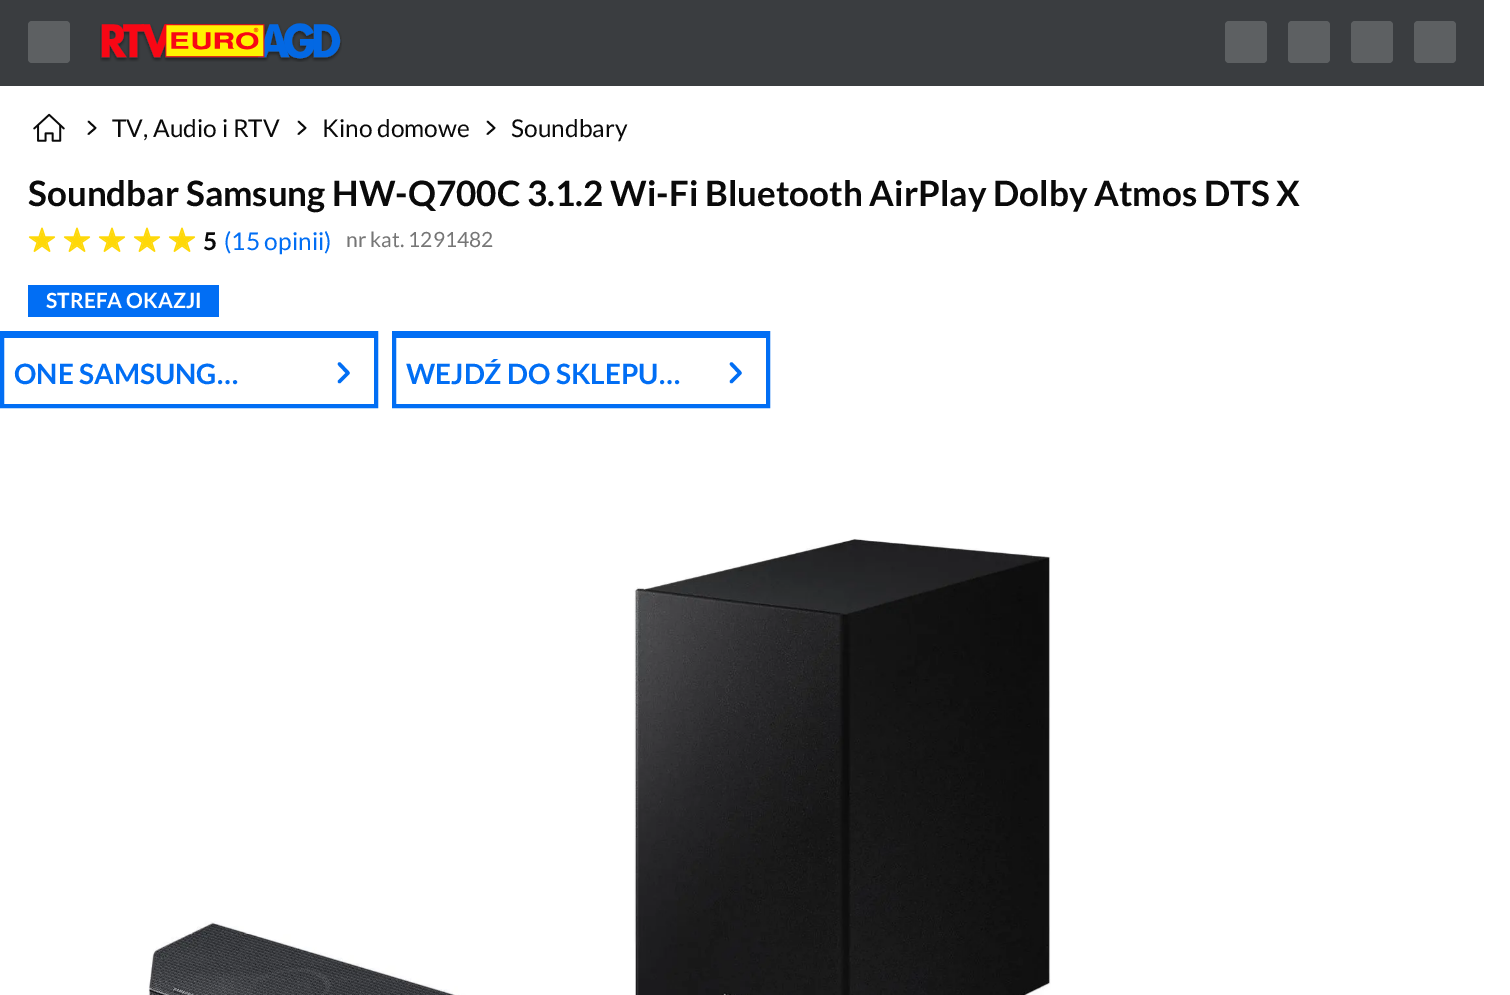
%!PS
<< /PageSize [1510 995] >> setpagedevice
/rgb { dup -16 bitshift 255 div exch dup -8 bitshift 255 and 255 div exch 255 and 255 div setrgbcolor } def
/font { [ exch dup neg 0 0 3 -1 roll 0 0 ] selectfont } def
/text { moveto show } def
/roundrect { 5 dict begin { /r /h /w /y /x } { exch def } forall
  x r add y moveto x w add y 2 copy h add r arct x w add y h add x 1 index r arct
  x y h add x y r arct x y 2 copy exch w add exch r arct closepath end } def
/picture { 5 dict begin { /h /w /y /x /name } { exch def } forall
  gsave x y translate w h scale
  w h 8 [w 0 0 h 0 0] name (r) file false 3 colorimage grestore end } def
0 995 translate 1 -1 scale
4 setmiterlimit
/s1 { /Lato-Regular 24.5 font 16#0A0A0A rgb } def
/s2 { /Lato-Bold 35 font 16#0A0A0A rgb } def
/s3 { /Lato-Bold 24.5 font 16#0A0A0A rgb } def
/s4 { /Lato-Regular 24.5 font 16#016EF4 rgb } def
/s5 { /Lato-Regular 21 font 16#767676 rgb } def
/s6 { /Lato-Bold 21 font 16#FFFFFF rgb } def
/s7 { /Lato-Bold 28 font 16#016EF4 rgb } def
16#FFFFFF rgb
0 0 1510 995 rectfill
16#3A3D40 rgb
0 0 1484 86 rectfill
16#5D6062 rgb
28 21 42 42 4 roundrect fill
(pic1.raw) 100 23 242 39 picture
1225 21 42 42 4 roundrect fill
1288 21 42 42 4 roundrect fill
1351 21 42 42 4 roundrect fill
1414 21 42 42 4 roundrect fill
(pic2.raw) 33 113 32 29 picture
16#0A0A0A rgb
1.8 setlinewidth
1 setlinecap
1 setlinejoin
88.5 134 moveto 95.5 128 lineto 88.5 121.5 lineto stroke
s1
(TV, Audio i RTV) 112 137 text
298.5 134 moveto 305.5 128 lineto 298.5 121.5 lineto stroke
(Kino domowe) 322 137 text
487.5 134 moveto 494.5 128 lineto 487.5 121.5 lineto stroke
(Soundbary) 511 137 text
s2
(Soundbar Samsung HW-Q700C 3.1.2 Wi-Fi Bluetooth AirPlay Dolby Atmos DTS X) 28 206 text
(pic3.raw) 28 227 28 25 picture
(pic3.raw) 63 227 28 25 picture
(pic3.raw) 98 227 28 25 picture
(pic3.raw) 133 227 28 25 picture
(pic3.raw) 168 227 28 25 picture
s3
(5) 203 250 text
s4
(\(15 opinii\)) 224 250 text
s5
(nr kat. 1291482) 346 247 text
16#016EF4 rgb
28 285 191 32 rectfill
s6
(STREFA OKAZJI) 46 308 text
16#016EF4 rgb
4 setlinewidth
0 setlinecap
0 setlinejoin
2 333 374 73 rectstroke
0 335 378 3 rectfill
s7
(ONE SAMSUNG…) 14 384 text
3.5 setlinewidth
1 setlinecap
1 setlinejoin
339.5 381.5 moveto 348 373 lineto 339.5 364 lineto stroke
4 setlinewidth
0 setlinecap
0 setlinejoin
394 333 374 73 rectstroke
392 335 378 3 rectfill
(WEJDŹ DO SKLEPU…) 406 384 text
3.5 setlinewidth
1 setlinecap
1 setlinejoin
731.5 381.5 moveto 740 373 lineto 731.5 364 lineto stroke
(pic4.raw) 148 538 903 457 picture
showpage
